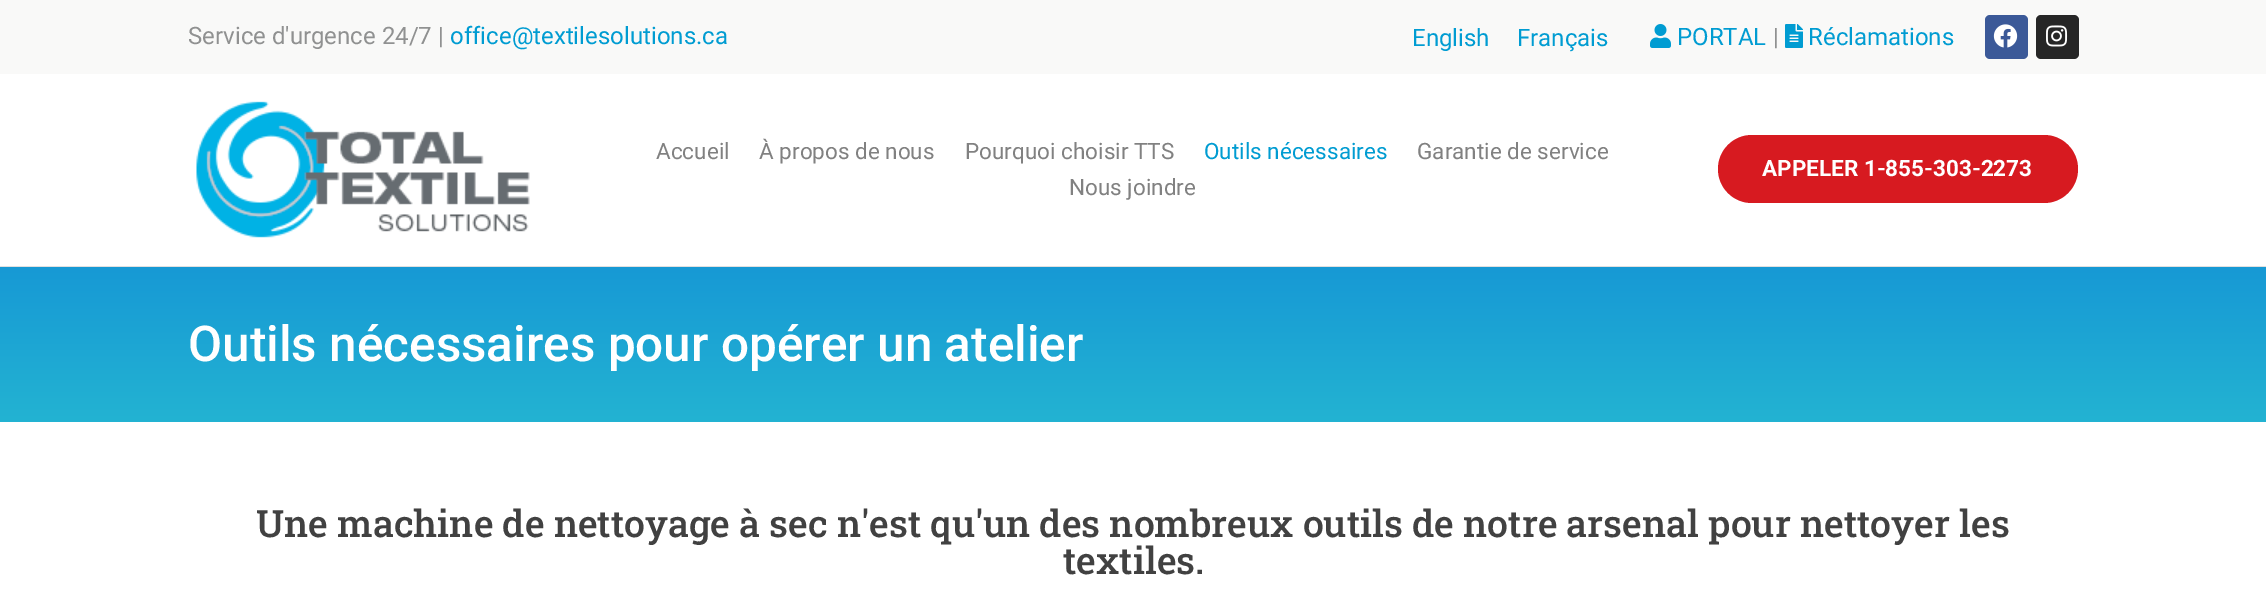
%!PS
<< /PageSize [2266 598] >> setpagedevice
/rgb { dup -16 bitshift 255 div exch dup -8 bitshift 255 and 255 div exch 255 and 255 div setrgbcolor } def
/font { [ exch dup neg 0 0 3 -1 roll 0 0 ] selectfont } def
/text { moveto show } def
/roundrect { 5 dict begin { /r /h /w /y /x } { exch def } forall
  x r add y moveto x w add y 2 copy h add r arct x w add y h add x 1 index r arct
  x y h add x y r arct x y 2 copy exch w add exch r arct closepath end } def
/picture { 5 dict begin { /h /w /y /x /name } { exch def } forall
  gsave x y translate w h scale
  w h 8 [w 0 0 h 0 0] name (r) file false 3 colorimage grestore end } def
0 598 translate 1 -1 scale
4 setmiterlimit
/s1 { /Roboto-Regular 24 font 16#909191 rgb } def
/s2 { /Roboto-Regular 24 font 16#009CD2 rgb } def
/s3 { /Roboto-Regular 22.5 font 16#818181 rgb } def
/s4 { /Roboto-Regular 22.5 font 16#009CD2 rgb } def
/s5 { /Roboto-Bold 22.5 font 16#FFFFFF rgb } def
/s6 { /Roboto-Medium 49.5 font 16#FFFFFF rgb } def
/s7 { /RobotoSlab-Medium 37.5 font 16#414141 rgb } def
16#FFFFFF rgb
0 0 2266 598 rectfill
16#F9F9F8 rgb
0 0 2266 74 rectfill
s1
(Service d'urgence 24/7 |) 188 44 text
s2
(office@textilesolutions.ca) 450 44 text
(English) 1412 46 text
(Français) 1517 46 text
(pic1.raw) 1650 24 21 24 picture
(PORTAL) 1677 45 text
s1
(|) 1773 45 text
(pic2.raw) 1785 24 18 24 picture
s2
(Réclamations) 1808 45 text
16#3B5998 rgb
1985 15 43 44 5 roundrect fill
(pic3.raw) 1993 24 25 24 picture
16#262626 rgb
2036 15 43 44 5 roundrect fill
(pic4.raw) 2046 25 22 22 picture
16#E1E0DF rgb
0 266 2266 1 rectfill
(pic5.raw) 196 101 334 137 picture
s3
(Accueil) 656 159 text
(À propos de nous) 759 159 text
(Pourquoi choisir TTS) 965 159 text
s4
(Outils nécessaires) 1204 159 text
s3
(Garantie de service) 1417 159 text
(Nous joindre) 1069 195 text
16#D71A20 rgb
1718 135 360 68 34 roundrect fill
s5
(APPELER 1-855-303-2273) 1762 176 text
gsave 0 267 moveto 2266 267 lineto 2266 422 lineto 0 422 lineto closepath clip newpath
<< /ShadingType 2 /ColorSpace /DeviceRGB /Coords [1133 267 1133 422] /Extend [true true] /Function << /FunctionType 2 /Domain [0 1] /C0 [0.09 0.6 0.835] /C1 [0.137 0.702 0.824] /N 1 >> >> shfill grestore
s6
(Outils nécessaires pour opérer un atelier) 188 361 text
s7
(Une machine de nettoyage à sec n'est qu'un des nombreux outils de notre arsenal pour nettoyer les) 256 537 text
(textiles.) 1063 574 text
showpage
